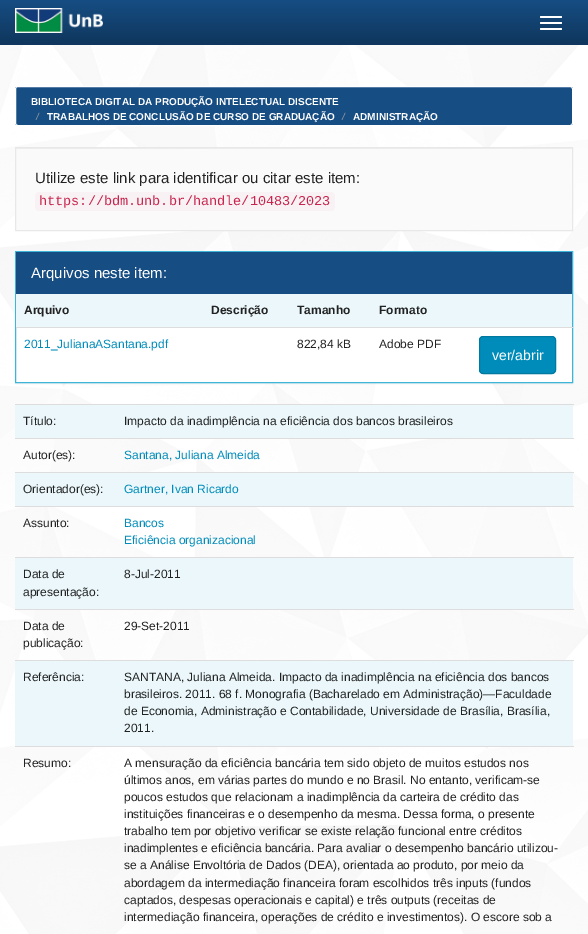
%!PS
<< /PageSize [588 934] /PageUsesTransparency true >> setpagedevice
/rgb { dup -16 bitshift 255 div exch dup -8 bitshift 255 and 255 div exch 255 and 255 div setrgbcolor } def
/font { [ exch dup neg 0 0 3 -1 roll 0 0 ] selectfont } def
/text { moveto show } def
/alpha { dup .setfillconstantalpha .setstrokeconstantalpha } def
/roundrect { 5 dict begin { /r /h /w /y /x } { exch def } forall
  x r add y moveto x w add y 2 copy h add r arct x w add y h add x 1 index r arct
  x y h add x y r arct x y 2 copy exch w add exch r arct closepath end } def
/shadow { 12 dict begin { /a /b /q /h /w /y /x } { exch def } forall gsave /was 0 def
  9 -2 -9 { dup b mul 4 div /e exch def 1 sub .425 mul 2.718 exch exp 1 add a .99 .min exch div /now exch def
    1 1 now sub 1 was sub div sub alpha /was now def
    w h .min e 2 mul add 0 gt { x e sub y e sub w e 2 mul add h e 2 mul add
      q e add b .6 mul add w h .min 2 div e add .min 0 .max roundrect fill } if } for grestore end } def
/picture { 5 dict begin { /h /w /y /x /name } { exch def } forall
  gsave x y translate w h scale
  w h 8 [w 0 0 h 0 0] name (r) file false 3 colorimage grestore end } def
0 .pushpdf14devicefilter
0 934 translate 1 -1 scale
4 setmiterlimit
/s1 { /LiberationSans-Bold 10 font 16#FFFFFF rgb } def
/s2 { /LiberationSans-Italic 10 font 16#999999 rgb } def
/s3 { /LiberationSans-Regular 15 font 16#222222 rgb } def
/s4 { /LiberationMono-Regular 13.5 font 16#C7254E rgb } def
/s5 { /LiberationSans-Regular 15 font 16#FFFFFF rgb } def
/s6 { /LiberationSans-Bold 12 font 16#222222 rgb } def
/s7 { /LiberationSans-Regular 12 font 16#008CBA rgb } def
/s8 { /LiberationSans-Regular 12 font 16#222222 rgb } def
/s9 { /LiberationSans-Regular 14 font 16#FFFFFF rgb } def
16#FFFFFF rgb
0 0 588 934 rectfill
(pic1.raw) 0 45 588 889 picture
gsave 0 0 moveto 588 0 lineto 588 45 lineto 0 45 lineto closepath clip newpath
<< /ShadingType 2 /ColorSpace /DeviceRGB /Coords [294 0 294 45] /Extend [true true] /Function << /FunctionType 2 /Domain [0 1] /C0 [0.086 0.302 0.514] /C1 [0.059 0.212 0.361] /N 1 >> >> shfill grestore
(pic2.raw) 15 8 88 25 picture
540 16 22 2 1 roundrect fill
540 22 22 2 1 roundrect fill
540 28 22 2 1 roundrect fill
gsave
15 86 558 40 3 roundrect clip newpath
16#164D83 rgb
15 87 558 38 rectfill
grestore
15.5 86.5 557 39 2.5 roundrect stroke
s1
(BIBLIOTECA DIGITAL DA PRODUÇÃO INTELECTUAL DISCENTE) 31 105 text
s2
(/) 36 120 text
s1
(TRABALHOS DE CONCLUSÃO DE CURSO DE GRADUAÇÃO) 47 120 text
s2
(/) 342 120 text
s1
(ADMINISTRAÇÃO) 353 120 text
16#FAFAFA rgb
16 149 556 81 rectfill
16#EEEEEE rgb
16 148 556 1 rectfill
16#E8E8E8 rgb
15.5 147.5 557 83 rectstroke
s3
(Utilize este link para identificar ou citar este item:) 35 183 text
16#F9F2F4 rgb
35 192 300 19 4 roundrect fill
s4
(https://bdm.unb.br/handle/10483/2023) 39 205 text
16#000000 rgb
15 252 558 132 0 0.5 0.05 shadow
16#FFFFFF rgb
16 328 556 54 rectfill
16#3DB5D8 rgb
15.5 251.5 557 131 rectstroke
16#164D83 rgb
16 252 556 42 rectfill
s5
(Arquivos neste item:) 31 278 text
16#EBF7FB rgb
16 294 556 33 rectfill
s6
(Arquivo) 24 314 text
(Descrição) 211 314 text
(Tamanho) 297 314 text
(Formato) 379 314 text
s7
(2011_JulianaASantana.pdf) 24 348 text
s8
(822,84 kB) 297 348 text
(Adobe PDF) 379 348 text
16#DDDDDD rgb
16 327 557 1 rectfill
16#008CBA rgb
479.5 336.5 76 37 3.5 roundrect gsave fill grestore
16#0079A1 rgb
stroke
s9
(ver/abrir) 492 360 text
16#EBF7FB rgb
15 405 558 33 rectfill
s8
(Título:) 23 425 text
16#DDDDDD rgb
15 404 559 1 rectfill
s8
(Impacto da inadimplência na eficiência dos bancos brasileiros) 124 425 text
(Autor\(es\):) 23 459 text
16#DDDDDD rgb
15 438 559 1 rectfill
s7
(Santana, Juliana Almeida) 124 459 text
16#EBF7FB rgb
15 473 558 33 rectfill
s8
(Orientador\(es\):) 23 493 text
16#DDDDDD rgb
15 472 559 1 rectfill
s7
(Gartner, Ivan Ricardo) 124 493 text
s8
(Assunto:) 23 527 text
16#DDDDDD rgb
15 506 559 1 rectfill
s7
(Bancos) 124 527 text
(Eficiência organizacional) 124 544 text
16#EBF7FB rgb
15 558 558 51 rectfill
s8
(Data de) 23 578 text
(apresentação:) 23 596 text
16#DDDDDD rgb
15 557 559 1 rectfill
s8
(8-Jul-2011) 124 578 text
(Data de) 23 630 text
(publicação:) 23 647 text
16#DDDDDD rgb
15 609 559 1 rectfill
s8
(29-Set-2011) 124 630 text
16#EBF7FB rgb
15 661 558 85 rectfill
s8
(Referência:) 23 681 text
16#DDDDDD rgb
15 660 559 1 rectfill
s8
(SANTANA, Juliana Almeida. Impacto da inadimplência na eficiência dos bancos) 124 681 text
(brasileiros. 2011. 68 f. Monografia \(Bacharelado em Administração\)—Faculdade) 124 698 text
(de Economia, Administração e Contabilidade, Universidade de Brasília, Brasília,) 124 715 text
(2011.) 124 732 text
(Resumo:) 23 767 text
16#DDDDDD rgb
15 746 559 1 rectfill
s8
(A mensuração da eficiência bancária tem sido objeto de muitos estudos nos) 124 767 text
(últimos anos, em várias partes do mundo e no Brasil. No entanto, verificam-se) 124 784 text
(poucos estudos que relacionam a inadimplência da carteira de crédito das) 124 801 text
(instituições financeiras e o desempenho da mesma. Dessa forma, o presente) 124 818 text
(trabalho tem por objetivo verificar se existe relação funcional entre créditos) 124 835 text
(inadimplentes e eficiência bancária. Para avaliar o desempenho bancário utilizou-) 124 852 text
(se a Análise Envoltória de Dados \(DEA\), orientada ao produto, por meio da) 124 869 text
(abordagem da intermediação financeira foram escolhidos três inputs \(fundos) 124 887 text
(captados, despesas operacionais e capital\) e três outputs \(receitas de) 124 904 text
(intermediação financeira, operações de crédito e investimentos\). O escore sob a) 124 921 text
.poppdf14devicefilter showpage
